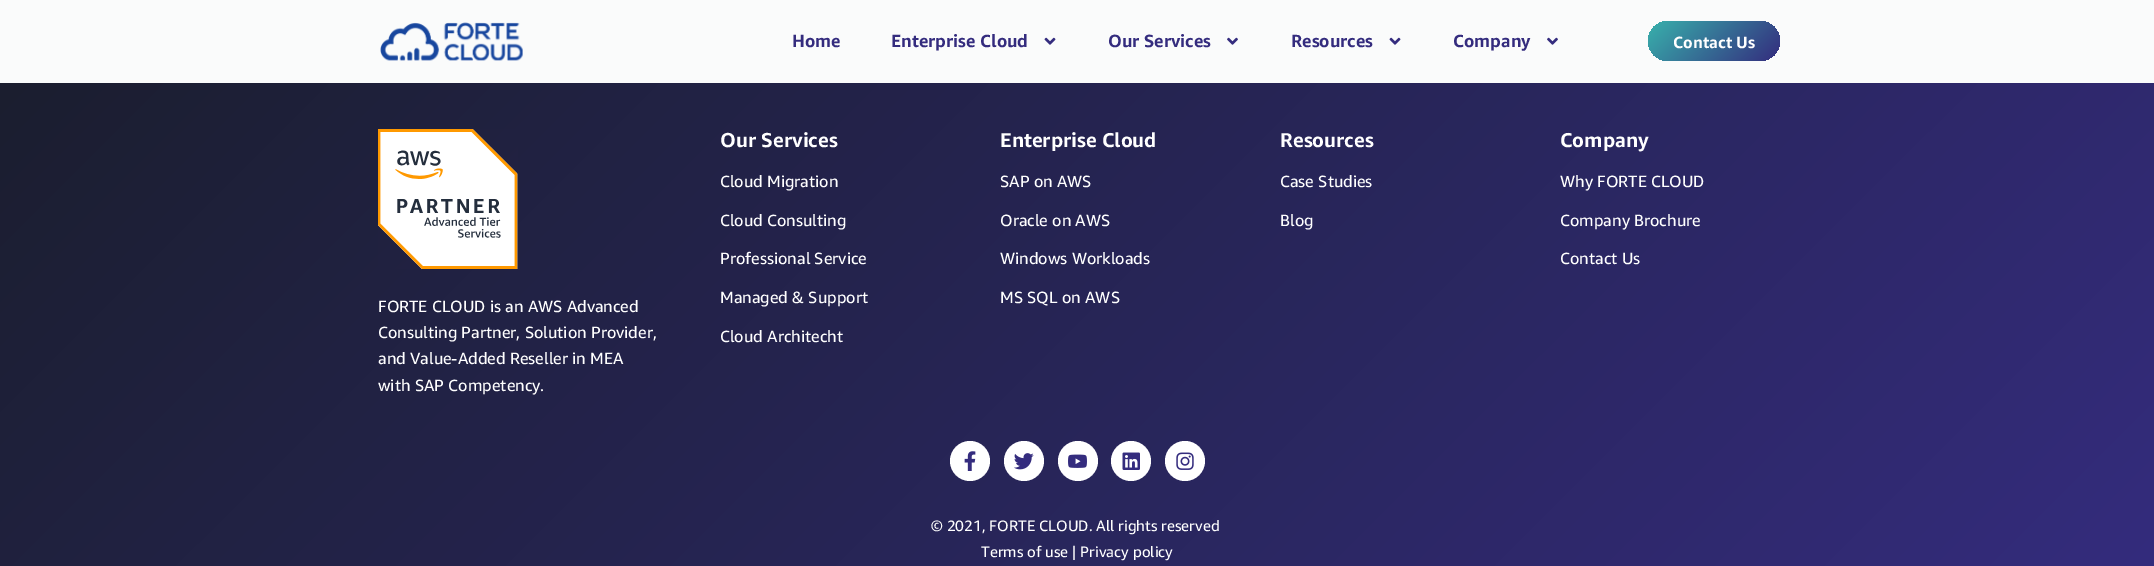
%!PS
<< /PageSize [2154 566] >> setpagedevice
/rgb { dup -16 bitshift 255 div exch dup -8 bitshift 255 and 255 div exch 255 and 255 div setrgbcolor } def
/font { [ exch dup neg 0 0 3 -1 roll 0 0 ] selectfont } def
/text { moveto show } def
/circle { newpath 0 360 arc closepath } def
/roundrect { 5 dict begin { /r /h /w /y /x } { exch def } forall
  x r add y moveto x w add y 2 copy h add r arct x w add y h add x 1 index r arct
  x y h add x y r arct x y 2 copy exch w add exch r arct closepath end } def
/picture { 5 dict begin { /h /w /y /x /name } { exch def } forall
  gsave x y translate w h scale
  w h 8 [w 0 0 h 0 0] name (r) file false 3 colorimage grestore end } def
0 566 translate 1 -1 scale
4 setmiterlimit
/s1 { /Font-Bold 17.5 font 16#342C7E rgb } def
/s2 { /Font-Bold 16.25 font 16#FFFFFF rgb } def
/s3 { /Font-Bold 20 font 16#FFFFFF rgb } def
/s4 { /Font-Regular 16.25 font 16#FFFFFF rgb } def
/s5 { /Font-Regular 15 font 16#FFFFFF rgb } def
16#FFFFFF rgb
0 0 2154 566 rectfill
16#FAFBFB rgb
0 0 2154 83 rectfill
(pic1.raw) 380 22 143 39 picture
s1
(Home) 792 47 text
(Enterprise Cloud) 891 47 text
(pic2.raw) 1044 37 12 8 picture
(Our Services) 1108 47 text
(pic3.raw) 1227 37 11 8 picture
(Resources) 1291 47 text
(pic2.raw) 1389 37 12 8 picture
(Company) 1453 47 text
(pic3.raw) 1547 37 11 8 picture
gsave 1648 21 132 40 20 roundrect clip newpath
<< /ShadingType 2 /ColorSpace /DeviceRGB /Coords [1757 84 1671 -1.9] /Extend [true true] /Function << /FunctionType 2 /Domain [0 1] /C0 [0.204 0.173 0.494] /C1 [0.22 0.694 0.675] /N 1 >> >> shfill grestore
s2
(Contact Us) 1673 48 text
gsave 0 83 moveto 2154 83 lineto 2154 566 lineto 0 566 lineto closepath clip newpath
<< /ShadingType 2 /ColorSpace /DeviceRGB /Coords [1746 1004 409 -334] /Extend [true true] /Function << /FunctionType 2 /Domain [0 1] /C0 [0.204 0.173 0.494] /C1 [0.106 0.118 0.184] /N 1 >> >> shfill grestore
s3
(Our Services) 720 147 text
s4
(Cloud Migration) 720 187 text
(Cloud Consulting) 720 226 text
(Professional Service) 720 264 text
(Managed & Support) 720 303 text
(Cloud Architecht) 720 342 text
s3
(Enterprise Cloud) 1000 147 text
s4
(SAP on AWS) 1000 187 text
(Oracle on AWS) 1000 226 text
(Windows Workloads) 1000 264 text
(MS SQL on AWS) 1000 303 text
s3
(Resources) 1280 147 text
s4
(Case Studies) 1280 187 text
(Blog) 1280 226 text
s3
(Company) 1560 147 text
s4
(Why FORTE CLOUD) 1560 187 text
(Company Brochure) 1560 226 text
(Contact Us) 1560 264 text
(pic4.raw) 378 129 140 140 picture
(FORTE CLOUD is an AWS Advanced) 378 312 text
(Consulting Partner, Solution Provider,) 378 338 text
(and Value-Added Reseller in MEA) 378 364 text
(with SAP Competency.) 378 391 text
970 461 20 circle fill
(pic5.raw) 964 451 12 20 picture
1024 461 20 circle fill
(pic6.raw) 1014 453 20 17 picture
1078 461 20 circle fill
(pic7.raw) 1068 454 19 14 picture
1131 461 20 circle fill
(pic8.raw) 1122 452 18 18 picture
1185 461 20 circle fill
(pic9.raw) 1176 452 18 18 picture
s5
(© 2021, FORTE CLOUD. All rights reserved) 931 531 text
(Terms of use | Privacy policy) 981 557 text
showpage
